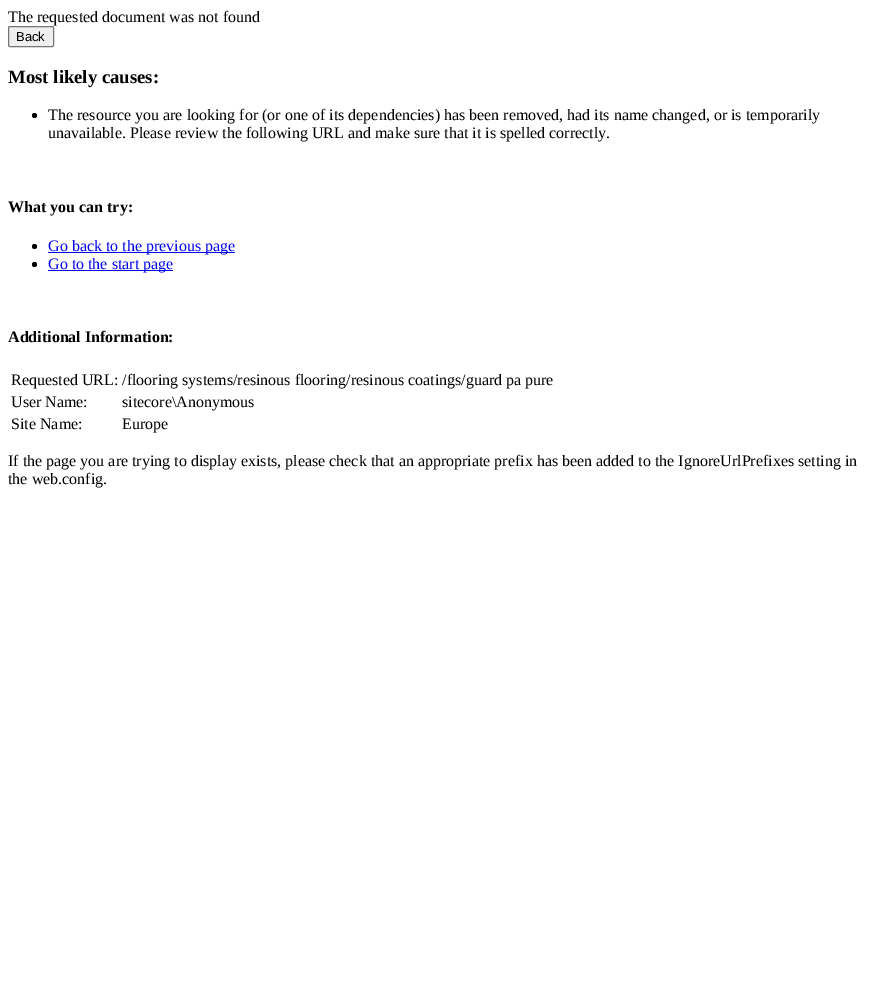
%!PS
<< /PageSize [873 1002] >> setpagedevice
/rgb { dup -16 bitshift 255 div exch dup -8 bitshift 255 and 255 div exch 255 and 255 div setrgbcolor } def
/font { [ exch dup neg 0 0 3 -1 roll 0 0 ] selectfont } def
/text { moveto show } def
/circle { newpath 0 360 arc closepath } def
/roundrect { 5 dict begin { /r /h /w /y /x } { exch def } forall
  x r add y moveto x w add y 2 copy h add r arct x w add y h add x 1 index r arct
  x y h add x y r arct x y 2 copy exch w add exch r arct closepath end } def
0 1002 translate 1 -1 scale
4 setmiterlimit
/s1 { /LiberationSerif-Regular 16 font 16#000000 rgb } def
/s2 { /LiberationSans-Regular 13 font 16#000000 rgb } def
/s3 { /LiberationSerif-Bold 18.75 font 16#000000 rgb } def
/s4 { /LiberationSerif-Bold 16 font 16#000000 rgb } def
/s5 { /LiberationSerif-Regular 16 font 16#0000EE rgb } def
16#FFFFFF rgb
0 0 873 1002 rectfill
s1
(The requested document was not found) 8 22 text
16#EFEFEF rgb
8.5 26.5 45 20 1.5 roundrect gsave fill grestore
16#767676 rgb
stroke
s2
(Back) 16 41 text
s3
(Most likely causes:) 8 83 text
34.5 115.5 2.5 circle fill
s1
(The resource you are looking for \(or one of its dependencies\) has been removed, had its name changed, or is temporarily) 48 120 text
(unavailable. Please review the following URL and make sure that it is spelled correctly.) 48 138 text
s4
(What you can try:) 8 212 text
34.5 246.5 2.5 circle fill
16#0000EE rgb
48 252 187 1 rectfill
s5
(Go back to the previous page) 48 251 text
16#000000 rgb
34.5 264.5 2.5 circle fill
16#0000EE rgb
48 270 125 1 rectfill
(Go to the start page) 48 269 text
s4
(Additional Information:) 8 342 text
s1
(Requested URL: /flooring systems/resinous flooring/resinous coatings/guard pa pure) 11 385 text
(User Name:) 11 407 text
(sitecore\\Anonymous) 122 407 text
(Site Name:) 11 429 text
(Europe) 122 429 text
(If the page you are trying to display exists, please check that an appropriate prefix has been added to the IgnoreUrlPrefixes setting in) 8 466 text
(the web.config.) 8 484 text
showpage
